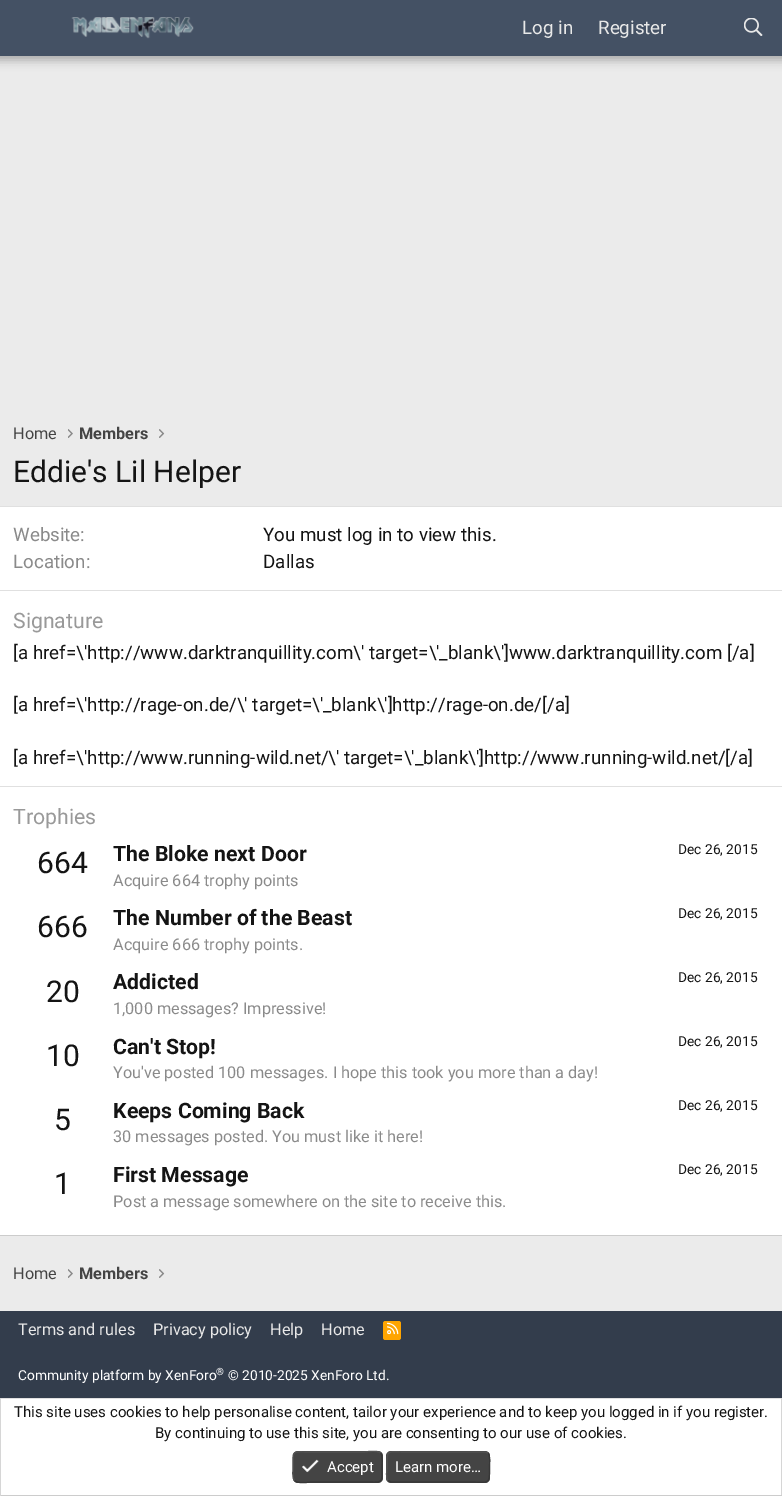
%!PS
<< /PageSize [782 1496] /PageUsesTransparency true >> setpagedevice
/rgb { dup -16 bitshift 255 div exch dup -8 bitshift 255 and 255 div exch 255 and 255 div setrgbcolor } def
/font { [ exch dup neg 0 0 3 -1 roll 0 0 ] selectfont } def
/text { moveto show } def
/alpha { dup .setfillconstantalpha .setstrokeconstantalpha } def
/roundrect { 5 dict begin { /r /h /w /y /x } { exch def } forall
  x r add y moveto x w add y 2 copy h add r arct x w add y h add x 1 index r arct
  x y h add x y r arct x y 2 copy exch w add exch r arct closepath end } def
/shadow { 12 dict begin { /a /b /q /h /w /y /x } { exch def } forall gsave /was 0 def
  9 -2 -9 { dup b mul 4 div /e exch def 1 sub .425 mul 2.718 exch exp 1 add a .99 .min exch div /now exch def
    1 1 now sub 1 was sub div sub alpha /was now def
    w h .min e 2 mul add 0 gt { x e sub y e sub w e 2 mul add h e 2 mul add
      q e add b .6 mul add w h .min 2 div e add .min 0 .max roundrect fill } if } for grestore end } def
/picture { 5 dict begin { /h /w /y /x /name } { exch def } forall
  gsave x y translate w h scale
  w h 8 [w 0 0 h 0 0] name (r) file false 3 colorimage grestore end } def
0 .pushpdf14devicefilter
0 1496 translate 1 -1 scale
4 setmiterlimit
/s1 { /Roboto-Regular 18.75 font 16#E8E8E8 rgb } def
/s2 { /Roboto-Regular 16.25 font 16#444444 rgb } def
/s3 { /Roboto-Bold 16.25 font 16#444444 rgb } def
/s4 { /Roboto-Regular 30 font 16#141414 rgb } def
/s5 { /Roboto-Regular 18.75 font 16#8A8A8A rgb } def
/s6 { /Roboto-Regular 18.75 font 16#141414 rgb } def
/s7 { /Roboto-Regular 21.25 font 16#999999 rgb } def
/s8 { /Roboto-Bold 21.25 font 16#141414 rgb } def
/s9 { /Roboto-Regular 13.75 font 16#141414 rgb } def
/s10 { /Roboto-Regular 16.25 font 16#8A8A8A rgb } def
/s11 { /Roboto-Regular 16.25 font 16#E8E8E8 rgb } def
/s12 { /Roboto-Regular 13.75 font 16#FFFFFF rgb } def
/s13 { /Roboto-Regular 10 font 16#FFFFFF rgb } def
/s14 { /Roboto-Regular 15 font 16#141414 rgb } def
/s15 { /Roboto-Regular 15 font 16#FFFFFF rgb } def
16#EBEBEB rgb
0 0 782 1496 rectfill
16#000000 rgb
-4 -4 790 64 0 5 0.3 shadow
16#445164 rgb
0 0 782 56 rectfill
(pic1.raw) 71 17 123 22 picture
s1
(Log in) 522 34 text
(Register) 598 34 text
(pic2.raw) 744 18 19 18 picture
s2
(Home) 13 439 text
(pic3.raw) 68 429 5 9 picture
s3
(Members) 79 439 text
(pic4.raw) 159 429 6 9 picture
s4
(Eddie's Lil Helper) 13 482 text
16#FFFFFF rgb
0 507 782 728 rectfill
16#E0E0E0 rgb
0 506 782 1 rectfill
16#CCCCCC rgb
0 1235 782 1 rectfill
s5
(Website:) 13 541 text
s6
(You must log in to view this.) 263 541 text
s5
(Location:) 13 568 text
s6
(Dallas) 263 568 text
16#E0E0E0 rgb
0 590 782 1 rectfill
s7
(Signature) 13 628 text
s6
([a href=\\'http://www.darktranquillity.com\\' target=\\'_blank\\']www.darktranquillity.com [/a]) 13 659 text
([a href=\\'http://rage-on.de/\\' target=\\'_blank\\']http://rage-on.de/[/a]) 13 711 text
([a href=\\'http://www.running-wild.net/\\' target=\\'_blank\\']http://www.running-wild.net/[/a]) 13 764 text
16#E0E0E0 rgb
0 786 782 1 rectfill
s7
(Trophies) 13 824 text
s4
(664) 37 873 text
s8
(The Bloke next Door) 113 861 text
s9
(Dec 26, 2015) 678 854 text
s10
(Acquire 664 trophy points) 113 886 text
s4
(666) 37 937 text
s8
(The Number of the Beast) 113 925 text
s9
(Dec 26, 2015) 678 918 text
s10
(Acquire 666 trophy points.) 113 950 text
s4
(20) 46 1002 text
s8
(Addicted) 113 989 text
s9
(Dec 26, 2015) 678 982 text
s10
(1,000 messages? Impressive!) 113 1014 text
s4
(10) 46 1066 text
s8
(Can't Stop!) 113 1054 text
s9
(Dec 26, 2015) 678 1046 text
s10
(You've posted 100 messages. I hope this took you more than a day!) 113 1078 text
s4
(5) 54 1130 text
s8
(Keeps Coming Back) 113 1118 text
s9
(Dec 26, 2015) 678 1110 text
s10
(30 messages posted. You must like it here!) 113 1142 text
s4
(1) 54 1194 text
s8
(First Message) 113 1182 text
s9
(Dec 26, 2015) 678 1174 text
s10
(Post a message somewhere on the site to receive this.) 113 1207 text
s2
(Home) 13 1279 text
(pic3.raw) 68 1269 5 9 picture
s3
(Members) 79 1279 text
(pic4.raw) 159 1269 6 9 picture
16#333D4C rgb
0 1311 782 87 rectfill
s11
(Terms and rules) 18 1335 text
(Privacy policy) 153 1335 text
(Help) 270 1335 text
(Home) 321 1335 text
16#FFA500 rgb
383 1321 18 19 2.5 roundrect fill
(pic5.raw) 387 1322 12 13 picture
s12
(Community platform by XenForo) 18 1380 text
s13
(®) 216 1375 text
s12
(© 2010-2025 XenForo Ltd.) 228 1380 text
1 1399 780 96 rectfill
16#E0E0E0 rgb
0 1398 782 1 rectfill
16#D6D6D6 rgb
781 1398 1 98 rectfill
16#CCCCCC rgb
0 1495 782 1 rectfill
16#D6D6D6 rgb
0 1398 1 98 rectfill
s14
(This site uses cookies to help personalise content, tailor your experience and to keep you logged in if you register.) 14 1417 text
(By continuing to use this site, you are consenting to our use of cookies.) 155 1438 text
16#444444 rgb
293 1451 90 32 5 roundrect fill
16#373737 rgb
1.2 setlinewidth
380.5 1453 moveto 383 1456 382 1463.5 382 1467 curveto 382 1484.5 383.5 1482 364 1482 curveto 311 1482 lineto 309.5 1482 297.5 1484 294.5 1480.5 curveto stroke
16#515151 rgb
294.5 1480.5 moveto 292 1478 293 1470 293 1467 curveto 293 1449 291.5 1452 311 1452 curveto 364 1452 lineto 365.5 1452 377.5 1450 380.5 1453 curveto stroke
(pic6.raw) 302 1459 17 14 picture
s15
(Accept) 327 1472 text
16#444444 rgb
386 1451 104 32 5 roundrect fill
16#373737 rgb
488 1453 moveto 490.5 1456 489.5 1463.5 489.5 1467 curveto 489.5 1485.5 490 1482 469.5 1482 curveto 391 1482 lineto 388 1480.5 lineto stroke
16#515151 rgb
388 1480.5 moveto 385.5 1478 387 1470 387 1467 curveto 387 1448.5 386 1452 407 1452 curveto 485 1452 lineto 488 1453 lineto stroke
s15
(Learn more…) 395 1472 text
.poppdf14devicefilter showpage
